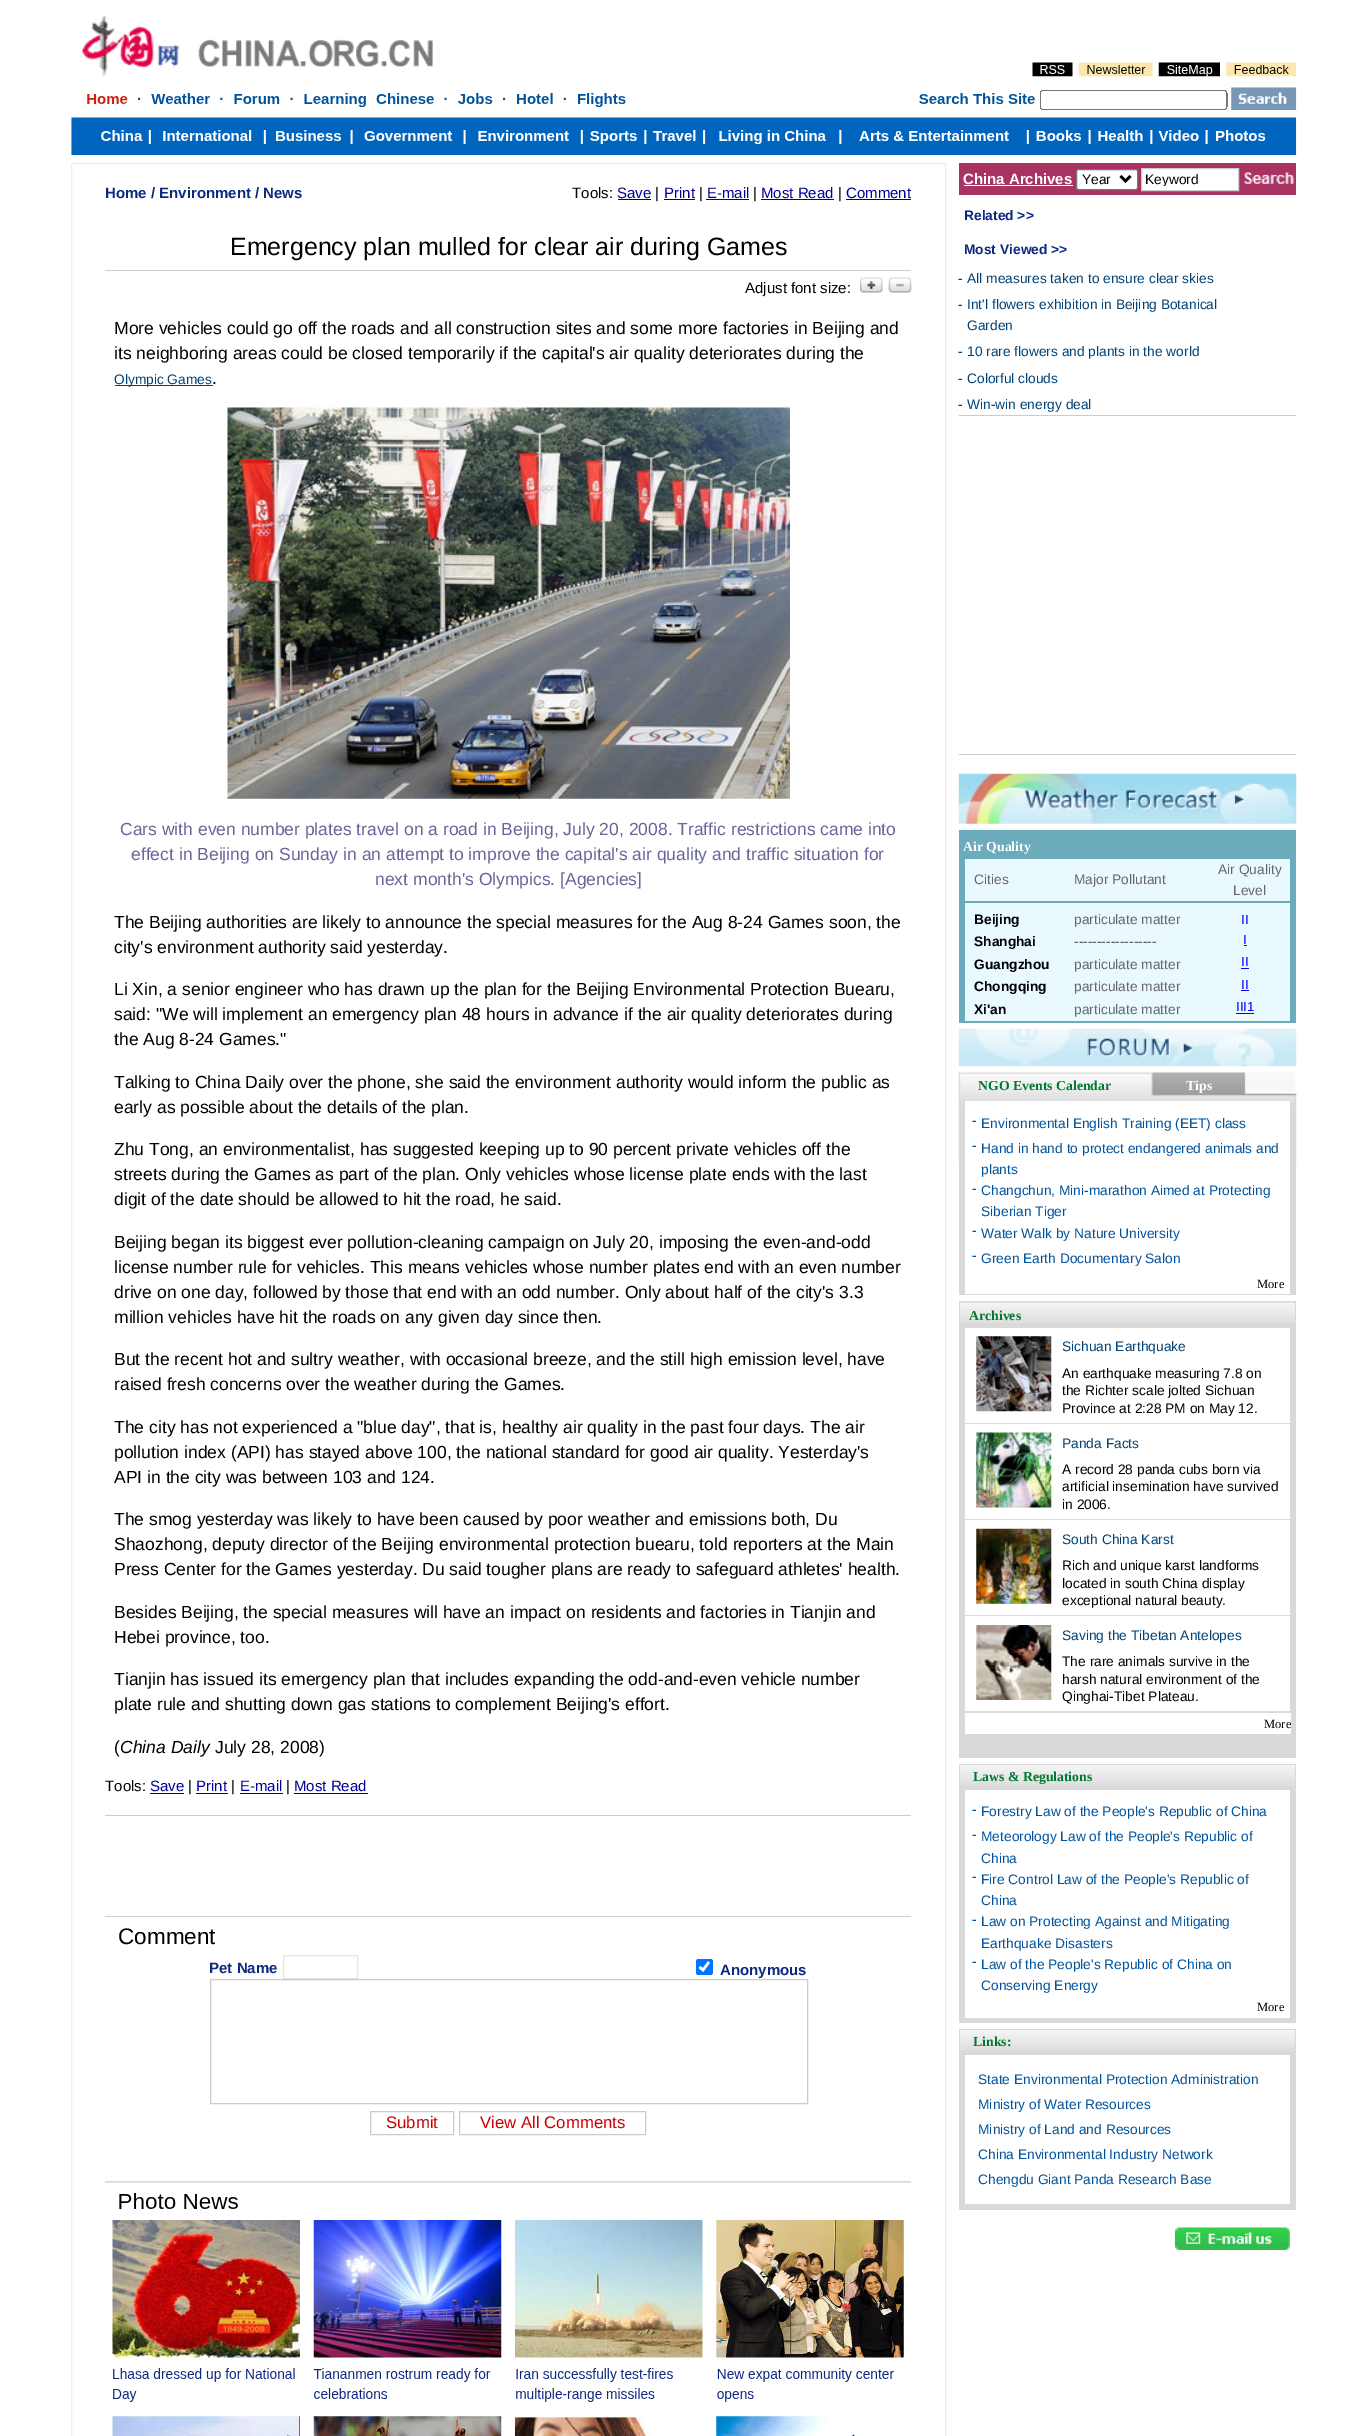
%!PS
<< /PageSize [1366 2436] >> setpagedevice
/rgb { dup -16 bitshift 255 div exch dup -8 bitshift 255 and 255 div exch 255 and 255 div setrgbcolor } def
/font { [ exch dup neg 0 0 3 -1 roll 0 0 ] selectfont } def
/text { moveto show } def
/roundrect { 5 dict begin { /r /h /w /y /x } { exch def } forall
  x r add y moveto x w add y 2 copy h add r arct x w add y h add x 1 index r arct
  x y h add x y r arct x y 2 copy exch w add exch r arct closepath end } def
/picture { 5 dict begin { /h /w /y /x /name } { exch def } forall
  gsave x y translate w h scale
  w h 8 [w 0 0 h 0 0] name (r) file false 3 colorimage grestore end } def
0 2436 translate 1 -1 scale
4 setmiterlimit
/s1 { /LiberationSans-Bold 15 font 16#0F287F rgb } def
/s2 { /LiberationSans-Regular 15 font 16#000000 rgb } def
/s3 { /LiberationSans-Regular 15 font 16#000099 rgb } def
/s4 { /LiberationSans-Regular 25 font 16#000000 rgb } def
/s5 { /LiberationSans-Regular 17.5 font 16#000000 rgb } def
/s6 { /LiberationSans-Regular 13.75 font 16#004276 rgb } def
/s7 { /LiberationSans-Regular 17.5 font 16#666699 rgb } def
/s8 { /LiberationSans-Italic 17.5 font 16#000000 rgb } def
/s9 { /LiberationSans-Regular 22.5 font 16#000000 rgb } def
/s10 { /LiberationSans-Regular 16.75 font 16#CC0000 rgb } def
/s11 { /LiberationSans-Bold 15 font 16#FFFFFF rgb } def
/s12 { /LiberationSans-Regular 13.75 font 16#000000 rgb } def
/s13 { /LiberationSans-Bold 13.75 font 16#0F287F rgb } def
/s14 { /LiberationSerif-Bold 13.75 font 16#FFFFFF rgb } def
/s15 { /LiberationSans-Regular 13.75 font 16#666666 rgb } def
/s16 { /LiberationSans-Bold 13.75 font 16#000000 rgb } def
/s17 { /LiberationSans-Regular 13 font 16#0000FF rgb } def
/s18 { /LiberationSerif-Bold 13.75 font 16#00792E rgb } def
/s19 { /LiberationSans-Regular 13.75 font 16#00529B rgb } def
/s20 { /LiberationSerif-Regular 12.5 font 16#000000 rgb } def
16#FFFFFF rgb
0 0 1366 2436 rectfill
(pic1.raw) 71 16 1226 139 picture
16#EEEEE6 rgb
71.5 163.5 874 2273 rectstroke
s1
(Home / Environment / News) 105 198 text
s2
(Tools:) 572 198 text
s3
(Save) 617 198 text
618 199 33 1 rectfill
s2
(|) 655 198 text
s3
(Print) 664 198 text
664 199 31 1 rectfill
s2
(|) 699 198 text
s3
(E-mail) 707 198 text
706 199 43 1 rectfill
s2
(|) 753 198 text
s3
(Most Read) 761 198 text
761 199 73 1 rectfill
s2
(|) 838 198 text
s3
(Comment) 846 198 text
846 199 65 1 rectfill
s4
(Emergency plan mulled for clear air during Games) 230 255 text
16#CCCCCC rgb
105 270 806 1 rectfill
s2
(Adjust font size:) 745 293 text
(pic2.raw) 860 277 23 16 picture
(pic3.raw) 888 277 24 16 picture
s5
(More vehicles could go off the roads and all construction sites and some more factories in Beijing and) 114 334 text
(its neighboring areas could be closed temporarily if the capital's air quality deteriorates during the) 114 359 text
16#004276 rgb
115 385 98 1 rectfill
s6
(Olympic Games) 114 384 text
s5
(.) 212 384 text
(pic4.raw) 227 407 563 392 picture
s7
(Cars with even number plates travel on a road in Beijing, July 20, 2008. Traffic restrictions came into) 120 835 text
(effect in Beijing on Sunday in an attempt to improve the capital's air quality and traffic situation for) 131 860 text
(next month's Olympics. [Agencies]) 375 885 text
s5
(The Beijing authorities are likely to announce the special measures for the Aug 8-24 Games soon, the) 114 928 text
(city's environment authority said yesterday.) 114 953 text
(Li Xin, a senior engineer who has drawn up the plan for the Beijing Environmental Protection Buearu,) 114 995 text
(said: "We will implement an emergency plan 48 hours in advance if the air quality deteriorates during) 114 1020 text
(the Aug 8-24 Games.") 114 1045 text
(Talking to China Daily over the phone, she said the environment authority would inform the public as) 114 1088 text
(early as possible about the details of the plan.) 114 1113 text
(Zhu Tong, an environmentalist, has suggested keeping up to 90 percent private vehicles off the) 114 1155 text
(streets during the Games as part of the plan. Only vehicles whose license plate ends with the last) 114 1180 text
(digit of the date should be allowed to hit the road, he said.) 114 1205 text
(Beijing began its biggest ever pollution-cleaning campaign on July 20, imposing the even-and-odd) 114 1248 text
(license number rule for vehicles. This means vehicles whose number plates end with an even number) 114 1273 text
(drive on one day, followed by those that end with an odd number. Only about half of the city's 3.3) 114 1298 text
(million vehicles have hit the roads on any given day since then.) 114 1323 text
(But the recent hot and sultry weather, with occasional breeze, and the still high emission level, have) 114 1365 text
(raised fresh concerns over the weather during the Games.) 114 1390 text
(The city has not experienced a "blue day", that is, healthy air quality in the past four days. The air) 114 1433 text
(pollution index \(API\) has stayed above 100, the national standard for good air quality. Yesterday's) 114 1458 text
(API in the city was between 103 and 124.) 114 1483 text
(The smog yesterday was likely to have been caused by poor weather and emissions both, Du) 114 1525 text
(Shaozhong, deputy director of the Beijing environmental protection buearu, told reporters at the Main) 114 1550 text
(Press Center for the Games yesterday. Du said tougher plans are ready to safeguard athletes' health.) 114 1575 text
(Besides Beijing, the special measures will have an impact on residents and factories in Tianjin and) 114 1618 text
(Hebei province, too.) 114 1643 text
(Tianjin has issued its emergency plan that includes expanding the odd-and-even vehicle number) 114 1685 text
(plate rule and shutting down gas stations to complement Beijing's effort.) 114 1710 text
(\() 114 1753 text
s8
(China Daily) 120 1753 text
s5
(July 28, 2008\)) 215 1753 text
s2
(Tools:) 105 1791 text
s3
(Save) 150 1791 text
150 1793 34 1 rectfill
s2
(|) 188 1791 text
s3
(Print) 196 1791 text
196 1793 32 1 rectfill
s2
(|) 231 1791 text
s3
(E-mail) 240 1791 text
240 1793 43 1 rectfill
s2
(|) 286 1791 text
s3
(Most Read) 294 1791 text
294 1793 74 1 rectfill
16#CCCCCC rgb
105 1815 806 1 rectfill
105 1916 806 1 rectfill
s9
(Comment) 118 1944 text
s1
(Pet Name) 209 1973 text
16#E4E4E4 rgb
283.5 1955.5 74 23 rectstroke
16#0075FF rgb
696 1959 17 16 2.5 roundrect fill
16#FFFFFF rgb
2.6 setlinewidth
699.5 1967 moveto 703 1970 lineto 709 1962 lineto stroke
s1
(Anonymous) 720 1975 text
16#CCCCCC rgb
1 setlinewidth
210.5 1979.5 597 124 rectstroke
370.5 2111.5 83 23 rectstroke
s10
(Submit) 386 2128 text
16#CCCCCC rgb
459.5 2111.5 186 23 rectstroke
s10
(View All Comments) 480 2128 text
(pic5.raw) 105 2181 806 255 picture
16#A83362 rgb
959 163 337 32 rectfill
s11
(China Archives) 963 184 text
964 185 109 1 rectfill
1076.5 169.5 61 20 2 roundrect gsave fill grestore
16#767676 rgb
stroke
16#000000 rgb
2.5 setlinewidth
1120.5 176 moveto 1125.5 181 lineto 1130.5 176 lineto stroke
s12
(Year) 1082 184 text
16#FFFFFF rgb
1141.5 168.5 moveto 1238.5 168.5 lineto 1238.5 190.5 lineto 1141.5 190.5 lineto closepath gsave fill grestore
16#CCCCCC rgb
1 setlinewidth
stroke
gsave
1145 171 90 15 rectclip
s12
(Keyword) 1145 184 text
grestore
(pic6.raw) 1243 168 52 22 picture
s13
(Related >>) 964 220 text
(Most Viewed >>) 964 254 text
s6
(-) 958 283 text
(All measures taken to ensure clear skies) 967 283 text
(-) 958 309 text
(Int'l flowers exhibition in Beijing Botanical) 967 309 text
(Garden) 967 330 text
(-) 958 356 text
(10 rare flowers and plants in the world) 967 356 text
(-) 958 383 text
(Colorful clouds) 967 383 text
(-) 958 409 text
(Win-win energy deal) 967 409 text
16#CCCCCC rgb
959 415 337 1 rectfill
959 754 337 1 rectfill
(pic7.raw) 958 773 339 51 picture
16#6CABBC rgb
959 830 337 193 rectfill
s14
(Air Quality) 963 851 text
16#EAF9FE rgb
965 859 325 42 rectfill
s15
(Cities) 974 884 text
(Major Pollutant) 1074 884 text
(Air Quality) 1218 874 text
(Level) 1233 895 text
16#EAF9FE rgb
965 903 325 118 rectfill
s16
(Beijing) 974 924 text
s15
(particulate matter) 1074 924 text
s17
(II) 1241 924 text
s16
(Shanghai) 974 946 text
s15
(------------------) 1074 946 text
s17
(I) 1243 944 text
1244 945 3 1 rectfill
s16
(Guangzhou) 974 969 text
s15
(particulate matter) 1074 969 text
s17
(II) 1241 966 text
1241 968 8 1 rectfill
s16
(Chongqing) 974 991 text
s15
(particulate matter) 1074 991 text
s17
(II) 1241 989 text
1241 990 8 1 rectfill
s16
(Xi'an) 974 1014 text
s15
(particulate matter) 1074 1014 text
s17
(III1) 1236 1011 text
1236 1013 18 1 rectfill
(pic8.raw) 958 1028 339 39 picture
(pic9.raw) 958 1072 339 25 picture
s18
(NGO Events Calendar) 978 1090 text
s14
(Tips) 1186 1090 text
16#D9D9D9 rgb
960 1096 335 199 rectfill
(pic10.raw) 958 1096 339 69 picture
1295 1096 1 199 rectfill
959 1096 1 199 rectfill
16#FFFFFF rgb
965 1101 325 193 rectfill
s19
(-) 972 1125 text
(Environmental English Training \(EET\) class) 981 1128 text
(-) 972 1150 text
(Hand in hand to protect endangered animals and) 981 1153 text
(plants) 981 1174 text
(-) 972 1193 text
(Changchun, Mini-marathon Aimed at Protecting) 981 1195 text
(Siberian Tiger) 981 1216 text
(-) 972 1235 text
(Water Walk by Nature University) 981 1238 text
(-) 972 1260 text
(Green Earth Documentary Salon) 981 1263 text
s20
(More) 1257 1288 text
16#D9D9D9 rgb
959 1301 337 457 rectfill
(pic11.raw) 960 1302 335 21 picture
s18
(Archives) 969 1320 text
16#FFFFFF rgb
965 1328 325 95 rectfill
(pic12.raw) 976 1336 76 76 picture
s6
(Sichuan Earthquake) 1062 1351 text
s12
(An earthquake measuring 7.8 on) 1062 1378 text
(the Richter scale jolted Sichuan) 1062 1395 text
(Province at 2:28 PM on May 12.) 1062 1413 text
16#FFFFFF rgb
965 1424 325 95 rectfill
(pic13.raw) 976 1432 76 76 picture
s6
(Panda Facts) 1062 1448 text
s12
(A record 28 panda cubs born via) 1062 1474 text
(artificial insemination have survived) 1062 1491 text
(in 2006.) 1062 1509 text
16#FFFFFF rgb
965 1520 325 95 rectfill
(pic14.raw) 976 1528 76 76 picture
s6
(South China Karst) 1062 1544 text
s12
(Rich and unique karst landforms) 1062 1570 text
(located in south China display) 1062 1588 text
(exceptional natural beauty.) 1062 1605 text
16#FFFFFF rgb
965 1616 325 95 rectfill
(pic15.raw) 976 1625 76 75 picture
s6
(Saving the Tibetan Antelopes) 1062 1640 text
s12
(The rare animals survive in the) 1062 1666 text
(harsh natural environment of the) 1062 1684 text
(Qinghai-Tibet Plateau.) 1062 1701 text
16#FFFFFF rgb
965 1713 326 21 rectfill
s20
(More) 1264 1728 text
16#D9D9D9 rgb
959 1764 337 259 rectfill
(pic16.raw) 960 1765 335 21 picture
s18
(Laws & Regulations) 973 1781 text
16#FFFFFF rgb
965 1790 325 228 rectfill
s19
(-) 972 1814 text
(Forestry Law of the People's Republic of China) 981 1816 text
(-) 972 1839 text
(Meteorology Law of the People's Republic of) 981 1841 text
(China) 981 1863 text
(-) 972 1881 text
(Fire Control Law of the People's Republic of) 981 1884 text
(China) 981 1905 text
(-) 972 1924 text
(Law on Protecting Against and Mitigating) 981 1926 text
(Earthquake Disasters) 981 1948 text
(-) 972 1966 text
(Law of the People's Republic of China on) 981 1969 text
(Conserving Energy) 981 1990 text
s20
(More) 1257 2011 text
16#D9D9D9 rgb
959 2029 337 181 rectfill
(pic16.raw) 960 2030 335 21 picture
s18
(Links:) 973 2046 text
16#FFFFFF rgb
965 2055 325 149 rectfill
s19
(State Environmental Protection Administration) 978 2084 text
(Ministry of Water Resources) 978 2109 text
(Ministry of Land and Resources) 978 2134 text
(China Environmental Industry Network) 978 2159 text
(Chengdu Giant Panda Research Base) 978 2184 text
(pic17.raw) 1175 2227 115 23 picture
showpage
